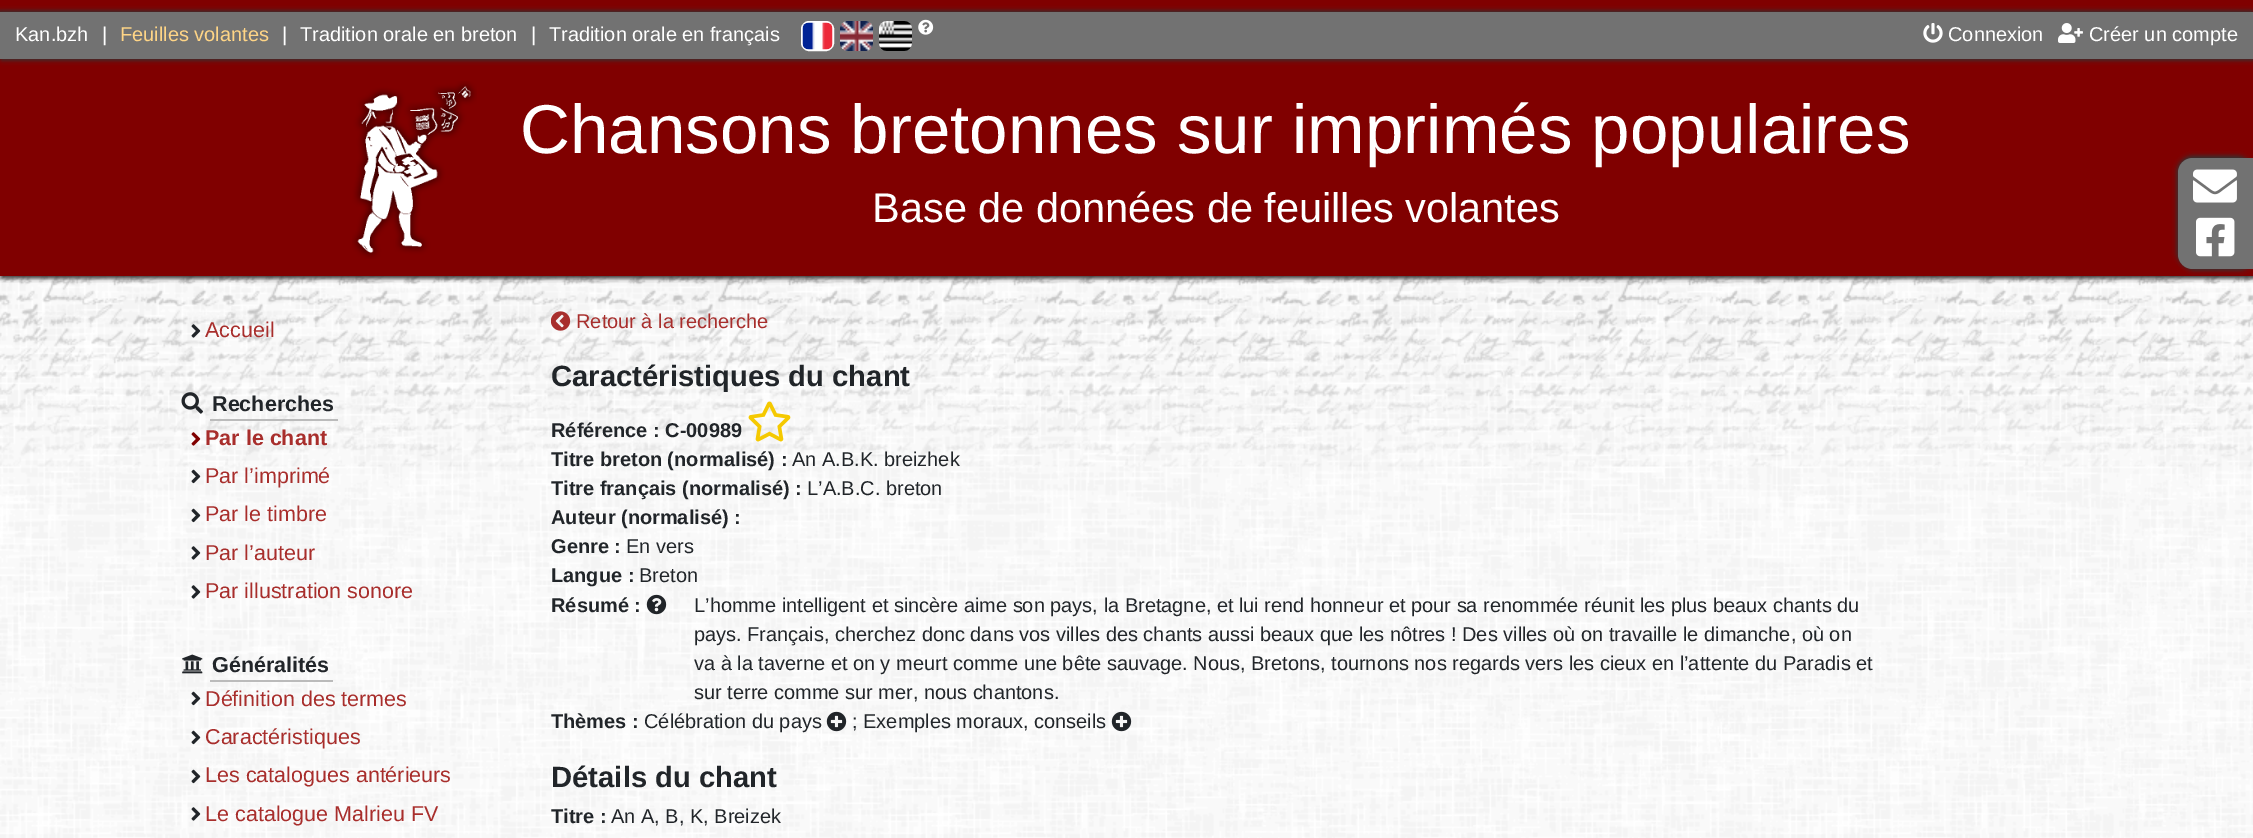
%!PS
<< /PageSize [2253 838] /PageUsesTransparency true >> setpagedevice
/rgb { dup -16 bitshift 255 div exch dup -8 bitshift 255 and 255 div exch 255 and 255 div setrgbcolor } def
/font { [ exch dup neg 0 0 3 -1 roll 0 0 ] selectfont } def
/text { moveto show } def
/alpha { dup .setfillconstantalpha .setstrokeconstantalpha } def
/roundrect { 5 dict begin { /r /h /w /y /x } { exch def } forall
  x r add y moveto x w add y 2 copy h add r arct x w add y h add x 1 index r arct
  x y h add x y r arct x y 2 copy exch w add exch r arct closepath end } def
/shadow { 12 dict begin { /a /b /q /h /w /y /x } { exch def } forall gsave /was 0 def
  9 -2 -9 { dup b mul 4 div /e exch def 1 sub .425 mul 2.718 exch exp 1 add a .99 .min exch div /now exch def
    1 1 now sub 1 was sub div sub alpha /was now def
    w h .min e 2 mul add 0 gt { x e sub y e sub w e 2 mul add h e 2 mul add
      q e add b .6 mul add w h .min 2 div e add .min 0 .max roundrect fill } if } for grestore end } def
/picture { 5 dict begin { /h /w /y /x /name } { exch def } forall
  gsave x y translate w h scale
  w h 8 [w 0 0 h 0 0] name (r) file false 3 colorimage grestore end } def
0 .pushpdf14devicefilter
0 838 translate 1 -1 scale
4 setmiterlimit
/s1 { /LiberationSans-Regular 19.97 font 16#FFFFFF rgb } def
/s2 { /LiberationSans-Regular 19.97 font 16#FFD586 rgb } def
/s3 { /LiberationSans-Regular 69.1 font 16#FFFFFF rgb } def
/s4 { /LiberationSans-Regular 41.5 font 16#FFFFFF rgb } def
/s5 { /LiberationSans-Regular 21.5 font 16#A82E2C rgb } def
/s6 { /LiberationSans-Bold 21.5 font 16#212529 rgb } def
/s7 { /LiberationSans-Bold 21.5 font 16#A82E2C rgb } def
/s8 { /LiberationSans-Regular 19.97 font 16#A82E2C rgb } def
/s9 { /LiberationSans-Bold 29.25 font 16#212529 rgb } def
/s10 { /LiberationSans-Bold 19.97 font 16#212529 rgb } def
/s11 { /LiberationSans-Regular 19.97 font 16#212529 rgb } def
16#FFFFFF rgb
0 0 2253 838 rectfill
(pic1.raw) 0 276 2253 562 picture
(pic2.raw) 0 276 2253 191 picture
16#800000 rgb
0 0 2253 276 rectfill
16#333333 rgb
-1 11 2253 46 0 2.5 1 shadow
2 14 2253 46 0 2.5 1 shadow
gsave
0 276 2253 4 rectclip
-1 45 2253 230 0 2.5 1 shadow
grestore
gsave
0 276 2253 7 rectclip
2 48 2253 230 0 2.5 1 shadow
grestore
16#727272 rgb
0 12 2253 47 rectfill
s1
(Kan.bzh) 15 41 text
(|) 102 41 text
s2
(Feuilles volantes) 120 41 text
s1
(|) 282 41 text
(Tradition orale en breton) 300 41 text
(|) 531 41 text
(Tradition orale en français) 549 41 text
2 setlinewidth
802 22 31 28 7 roundrect stroke
(pic3.raw) 802 22 31 28 picture
(pic4.raw) 840 21 33 30 picture
(pic5.raw) 879 21 33 30 picture
(pic6.raw) 918 19 16 16 picture
(pic7.raw) 1923 23 20 20 picture
(Connexion) 1948 41 text
(pic8.raw) 2058 23 25 20 picture
(Créer un compte) 2089 41 text
(pic9.raw) 352 81 125 178 picture
s3
(Chansons bretonnes sur imprimés populaires) 520 153 text
s4
(Base de données de feuilles volantes) 872 222 text
(pic10.raw) 191 324 10 14 picture
s5
(Accueil) 205 337 text
(pic11.raw) 181 392 22 22 picture
s6
(Recherches) 212 411 text
16#BBBBBB rgb
210 419 128 2 rectfill
(pic12.raw) 191 432 10 14 picture
s7
(Par le chant) 205 445 text
(pic13.raw) 191 469 10 15 picture
s5
(Par l’imprimé) 205 483 text
(pic14.raw) 191 508 10 15 picture
(Par le timbre) 205 521 text
(pic15.raw) 191 546 10 14 picture
(Par l’auteur) 205 560 text
(pic16.raw) 191 585 10 14 picture
(Par illustration sonore) 205 598 text
(pic17.raw) 182 654 21 20 picture
s6
(Généralités) 212 672 text
16#BBBBBB rgb
210 680 123 2 rectfill
(pic18.raw) 191 691 10 15 picture
s5
(Définition des termes) 205 706 text
(pic19.raw) 191 730 10 15 picture
(Caractéristiques) 205 744 text
(pic20.raw) 191 769 10 15 picture
(Les catalogues antérieurs) 205 782 text
(pic21.raw) 191 807 10 14 picture
(Le catalogue Malrieu FV) 205 821 text
(pic22.raw) 551 311 20 20 picture
s8
(Retour à la recherche) 576 328 text
s9
(Caractéristiques du chant) 551 386 text
s10
(Référence : C-00989) 551 437 text
(pic23.raw) 748 401 43 41 picture
gsave
551 308 1536 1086 rectclip
(Titre breton \(normalisé\) :) 551 466 text
grestore
s11
(An A.B.K. breizhek) 792 466 text
gsave
551 308 1536 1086 rectclip
s10
(Titre français \(normalisé\) :) 551 495 text
grestore
(L’A.B.C. breton) 807 495 text
s10
(Auteur \(normalisé\) :) 551 524 text
(Genre :) 551 553 text
s11
(En vers) 626 553 text
s10
(Langue :) 551 582 text
s11
(Breton) 639 582 text
s10
(Résumé :) 551 612 text
(pic24.raw) 646 594 21 21 picture
s11
(L’homme intelligent et sincère aime son pays, la Bretagne, et lui rend honneur et pour sa renommée réunit les plus beaux chants du) 694 612 text
(pays. Français, cherchez donc dans vos villes des chants aussi beaux que les nôtres ! Des villes où on travaille le dimanche, où on) 694 641 text
(va à la taverne et on y meurt comme une bête sauvage. Nous, Bretons, tournons nos regards vers les cieux en l’attente du Paradis et) 694 670 text
(sur terre comme sur mer, nous chantons.) 694 699 text
gsave
551 308 1536 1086 rectclip
s10
(Thèmes :) 551 728 text
grestore
(Célébration du pays) 644 728 text
(pic25.raw) 826 711 21 21 picture
(; Exemples moraux, conseils) 852 728 text
(pic26.raw) 1111 711 21 21 picture
s9
(Détails du chant) 551 787 text
gsave
551 308 1536 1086 rectclip
s10
(Titre :) 551 823 text
grestore
s11
(An A, B, K, Breizek) 611 823 text
16#333333 rgb
2177 156 75 111 15 2.5 1 shadow
2180 159 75 111 15 2.5 1 shadow
16#727272 rgb
2193 158 moveto 2253 158 lineto 2253 269 lineto 2193 269 lineto 2184.5 269 2178 262.5 2178 254 curveto 2178 173 lineto 2178 164.5 2184.5 158 2193 158 curveto closepath fill
(pic27.raw) 2193 169 44 34 picture
(pic28.raw) 2196 217 39 40 picture
.poppdf14devicefilter showpage
